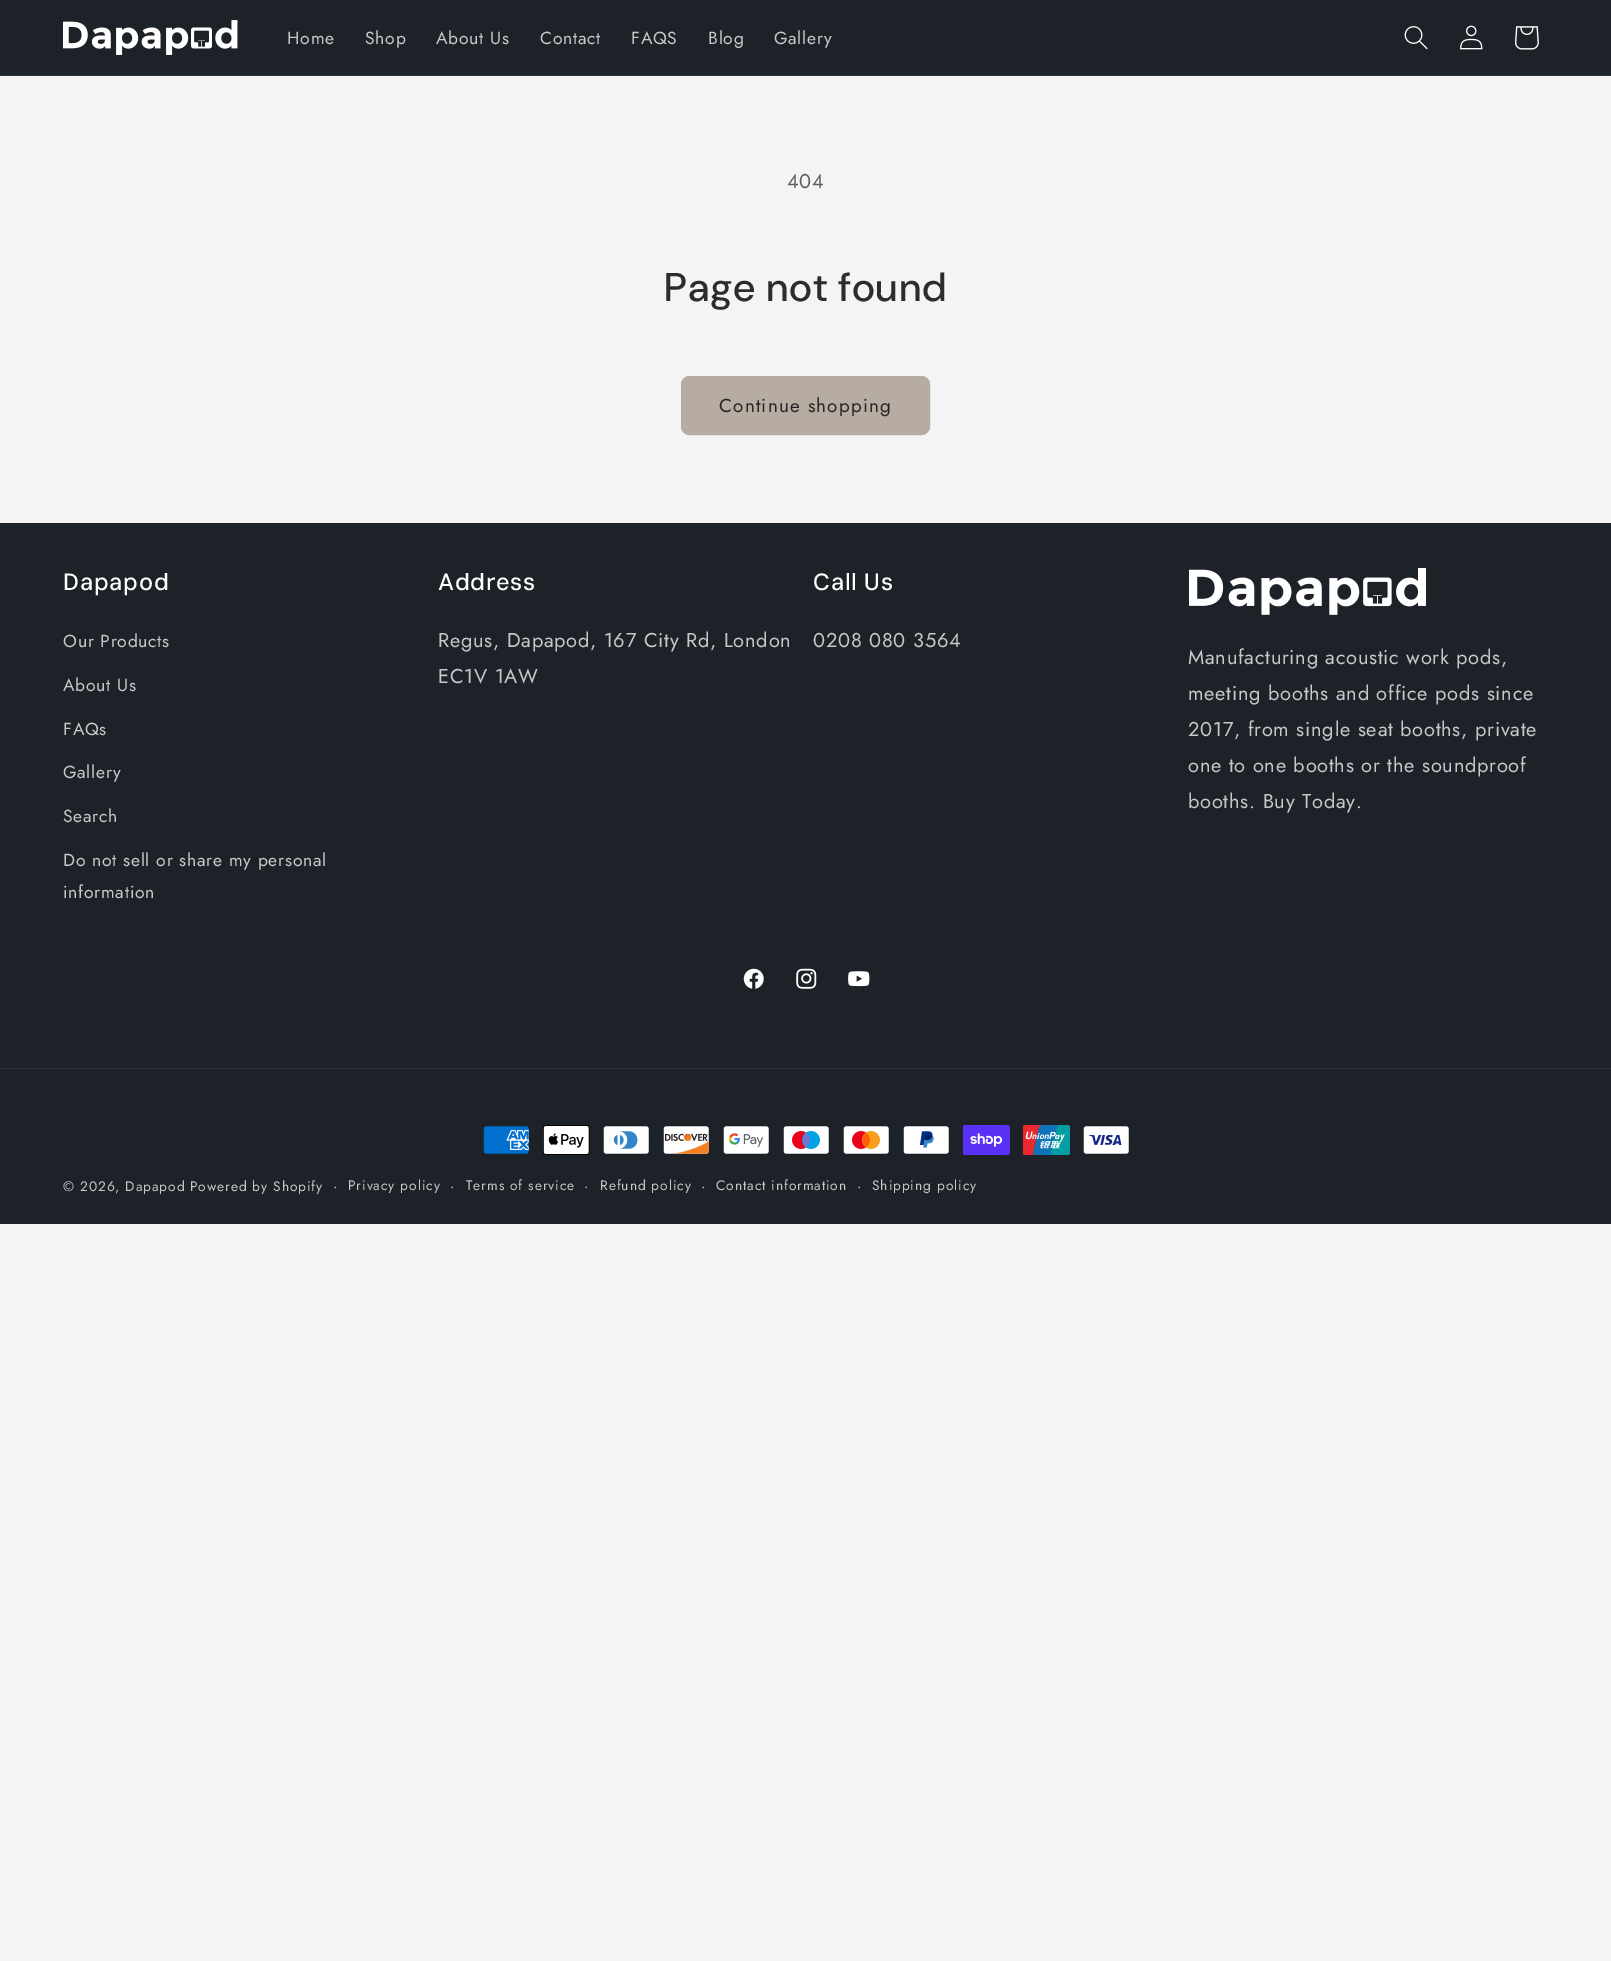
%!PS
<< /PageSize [1611 1961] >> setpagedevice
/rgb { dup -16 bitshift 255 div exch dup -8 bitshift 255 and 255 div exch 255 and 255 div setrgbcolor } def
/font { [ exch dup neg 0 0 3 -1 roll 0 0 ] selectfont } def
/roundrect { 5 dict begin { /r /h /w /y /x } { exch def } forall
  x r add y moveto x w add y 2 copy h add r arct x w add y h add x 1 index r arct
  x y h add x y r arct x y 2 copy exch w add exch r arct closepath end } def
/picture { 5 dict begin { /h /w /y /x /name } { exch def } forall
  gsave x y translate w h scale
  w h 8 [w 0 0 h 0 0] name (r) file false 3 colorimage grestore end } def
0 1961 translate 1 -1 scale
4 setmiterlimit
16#F4F4F4 rgb
0 0 1611 1961 rectfill
16#1C2228 rgb
0 0 1611 75 rectfill
16#2E3439 rgb
0 75 1611 1 rectfill
(pic1.raw) 63 20 175 35 picture
/Jost-Regular 17.5 font
16#C6C8C9 rgb
287 44 moveto 0.75 0 (Home) ashow
365 44 moveto 0.75 0 (Shop) ashow
436 44 moveto 0.75 0 (About Us) ashow
540 44 moveto 0.75 0 (Contact) ashow
631 44 moveto 0.75 0 (FAQS) ashow
708 44 moveto 0.75 0 (Blog) ashow
774 44 moveto 0.75 0 (Gallery) ashow
(pic2.raw) 1404 26 24 24 picture
(pic3.raw) 1460 25 23 25 picture
(pic4.raw) 1515 26 24 24 picture
/Jost-Regular 20 font
16#5D5E5F rgb
787 188 moveto 0.75 0 (404) ashow
/DMSans-Medium 40 font
16#2B2C2D rgb
664 301 moveto 0.75 0 (Page not found) ashow
16#B7ACA2 rgb
681 376 249 59 9 roundrect fill
681.5 376.5 248 58 8.5 roundrect stroke
/Jost-Regular 18.75 font
16#262626 rgb
719 412 moveto 1.25 0 (Continue shopping) ashow
16#1C2228 rgb
0 523 1611 701 rectfill
/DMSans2-Medium 23.5 font
16#FFFFFF rgb
63 590 moveto 0.75 0 (Dapapod) ashow
/Jost-Regular 17.5 font
16#C6C8C9 rgb
63 647 moveto 0.75 0 (Our Products) ashow
63 691 moveto 0.75 0 (About Us) ashow
63 735 moveto 0.75 0 (FAQs) ashow
63 778 moveto 0.75 0 (Gallery) ashow
63 822 moveto 0.75 0 (Search) ashow
63 866 moveto 0.75 0 (Do not sell or share my personal) ashow
63 898 moveto 0.75 0 (information) ashow
/DMSans2-Medium 23.5 font
16#FFFFFF rgb
438 590 moveto 0.75 0 (Address) ashow
/Jost-Regular 20 font
16#C6C8C9 rgb
438 647 moveto 0.75 0 (Regus, Dapapod, 167 City Rd, London) ashow
438 683 moveto 0.75 0 (EC1V 1AW) ashow
/DMSans2-Medium 23.5 font
16#FFFFFF rgb
813 590 moveto 0.75 0 (Call Us) ashow
/Jost-Regular 20 font
16#C6C8C9 rgb
813 647 moveto 0.75 0 (0208 080 3564) ashow
(pic5.raw) 1189 568 237 47 picture
1188 664 moveto 0.75 0 (Manufacturing acoustic work pods,) ashow
1188 700 moveto 0.75 0 (meeting booths and office pods since) ashow
1188 736 moveto 0.75 0 (2017, from single seat booths, private) ashow
1188 772 moveto 0.75 0 (one to one booths or the soundproof) ashow
1188 808 moveto 0.75 0 (booths. Buy Today.) ashow
(pic6.raw) 743 968 21 21 picture
(pic7.raw) 796 968 21 21 picture
(pic8.raw) 848 971 22 16 picture
16#2E3439 rgb
0 1068 1611 1 rectfill
(pic9.raw) 483 1126 46 28 picture
(pic10.raw) 543 1125 47 30 picture
(pic11.raw) 603 1126 46 28 picture
(pic12.raw) 663 1126 46 28 picture
(pic13.raw) 723 1126 46 28 picture
(pic14.raw) 783 1126 46 28 picture
(pic15.raw) 843 1126 46 28 picture
(pic16.raw) 903 1126 46 28 picture
(pic17.raw) 963 1125 47 30 picture
(pic18.raw) 1023 1125 47 30 picture
(pic19.raw) 1083 1126 46 28 picture
/Jost-Regular 13.75 font
16#C6C8C9 rgb
63 1191 moveto 0.9 0 (© 2026, Dapapod) ashow
190 1191 moveto 0.9 0 (Powered by Shopify) ashow
/Jost-Regular 15 font
333 1191 moveto 0.9 0 (·) ashow
/Jost-Regular 13.75 font
348 1190 moveto 0.9 0 (Privacy policy) ashow
/Jost-Regular 15 font
450 1191 moveto 0.9 0 (·) ashow
/Jost-Regular 13.75 font
466 1190 moveto 0.9 0 (Terms of service) ashow
/Jost-Regular 15 font
584 1191 moveto 0.9 0 (·) ashow
/Jost-Regular 13.75 font
600 1190 moveto 0.9 0 (Refund policy) ashow
/Jost-Regular 15 font
701 1191 moveto 0.9 0 (·) ashow
/Jost-Regular 13.75 font
716 1190 moveto 0.9 0 (Contact information) ashow
/Jost-Regular 15 font
857 1191 moveto 0.9 0 (·) ashow
/Jost-Regular 13.75 font
872 1190 moveto 0.9 0 (Shipping policy) ashow
showpage
